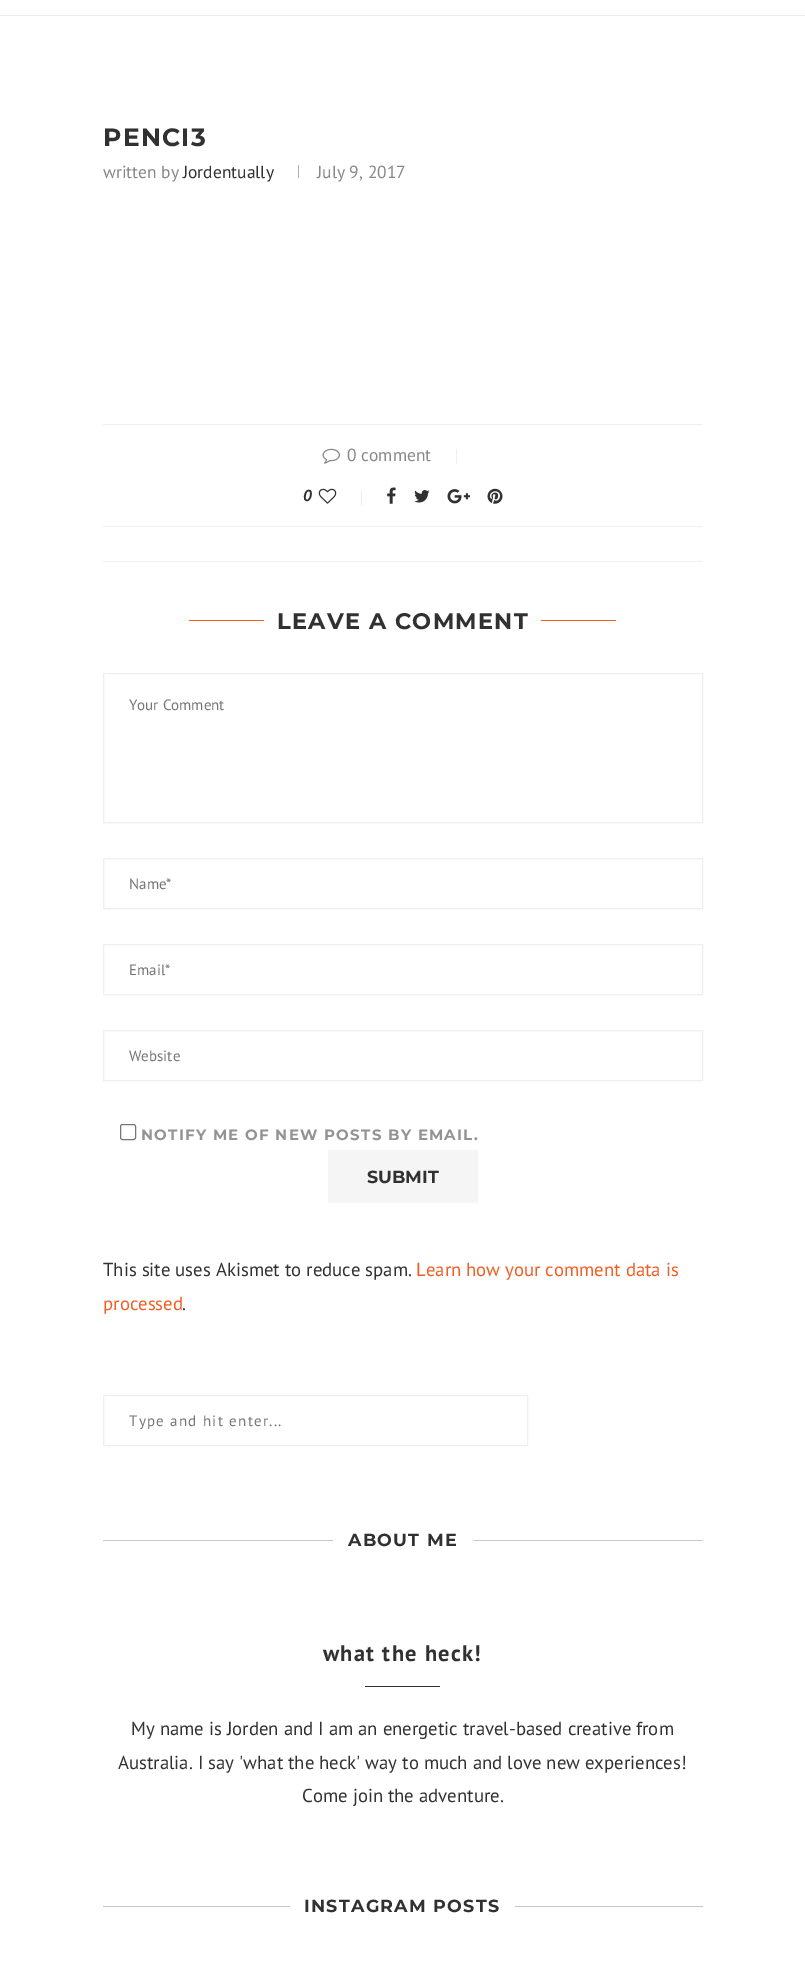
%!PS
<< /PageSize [805 1961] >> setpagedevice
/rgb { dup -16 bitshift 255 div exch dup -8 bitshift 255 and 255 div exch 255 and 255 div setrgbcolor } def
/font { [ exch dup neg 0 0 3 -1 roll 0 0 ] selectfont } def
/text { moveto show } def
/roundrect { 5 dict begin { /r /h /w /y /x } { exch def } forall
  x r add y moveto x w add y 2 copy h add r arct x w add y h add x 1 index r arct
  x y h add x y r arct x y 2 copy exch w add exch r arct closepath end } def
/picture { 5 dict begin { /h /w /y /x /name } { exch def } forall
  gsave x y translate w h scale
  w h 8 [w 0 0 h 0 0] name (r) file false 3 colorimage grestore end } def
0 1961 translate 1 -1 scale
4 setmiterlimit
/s1 { /PTSans-Regular 17.5 font 16#888888 rgb } def
/s2 { /PTSans-Regular 17.5 font 16#313131 rgb } def
/s3 { /PTSans-BoldItalic 16 font 16#313131 rgb } def
/s4 { /PTSans-Regular 15 font 16#757575 rgb } def
/s5 { /Montserrat-Bold 17.5 font 16#313131 rgb } def
/s6 { /PTSans-Regular 18.75 font 16#313131 rgb } def
/s7 { /PTSans-Regular 18.75 font 16#F15E24 rgb } def
16#FFFFFF rgb
0 0 805 1961 rectfill
16#ECECEC rgb
0 15 805 1 rectfill
/Montserrat-Bold 25 font
16#313131 rgb
103 146 moveto 1.25 0 (PENCI3) ashow
s1
(written by) 103 178 text
s2
(Jordentually) 183 178 text
16#ACACAC rgb
298 165 1 13 rectfill
s1
(July 9, 2017) 317 178 text
16#EFEFEF rgb
103 424 600 1 rectfill
(pic1.raw) 322 448 18 16 picture
s1
(0 comment) 347 461 text
16#EFEFEF rgb
456 449 1 15 rectfill
s3
(0) 303 501 text
(pic2.raw) 318 488 19 16 picture
16#EFEFEF rgb
361 490 1 15 rectfill
(pic3.raw) 387 487 9 17 picture
(pic4.raw) 414 490 16 13 picture
(pic5.raw) 447 489 23 15 picture
(pic6.raw) 487 488 16 16 picture
103 526 600 1 rectfill
103 561 600 1 rectfill
16#F15E24 rgb
189 620 75 1 rectfill
/Montserrat-Bold 22.5 font
16#313131 rgb
277 629 moveto 1.25 0 (LEAVE A COMMENT) ashow
16#F15E24 rgb
541 620 75 1 rectfill
16#EFEFEF rgb
103.5 673.5 599 149 rectstroke
s4
(Your Comment) 129 710 text
16#EFEFEF rgb
103.5 858.5 599 50 rectstroke
s4
(Name*) 129 889 text
16#EFEFEF rgb
103.5 944.5 599 50 rectstroke
s4
(Email*) 129 975 text
16#EFEFEF rgb
103.5 1030.5 599 50 rectstroke
s4
(Website) 129 1061 text
16#767676 rgb
120.5 1124.5 15 15 2 roundrect stroke
/Montserrat-Bold 15 font
16#939393 rgb
141 1140 moveto 1.25 0 (NOTIFY ME OF NEW POSTS BY EMAIL.) ashow
16#F5F5F5 rgb
328 1150 150 53 rectfill
s5
(SUBMIT) 367 1183 text
s6
(This site uses Akismet to reduce spam.) 103 1276 text
s7
(Learn how your comment data is) 416 1276 text
(processed) 103 1310 text
s6
(.) 182 1310 text
16#EFEFEF rgb
103.5 1395.5 424 50 rectstroke
/PTSans-Regular 15 font
16#757575 rgb
129 1426 moveto 1.25 0 (Type and hit enter...) ashow
16#C7C7C7 rgb
103 1540 230 1 rectfill
/Montserrat-Bold 17.5 font
16#313131 rgb
348 1546 moveto 1.25 0 (ABOUT ME) ashow
16#C7C7C7 rgb
473 1540 230 1 rectfill
/PTSans-Bold 22.5 font
16#313131 rgb
323 1661 moveto 1.25 0 (what the heck!) ashow
365 1686 75 1 rectfill
s6
(My name is Jorden and I am an energetic travel-based creative from) 131 1735 text
(Australia. I say 'what the heck' way to much and love new experiences!) 118 1769 text
(Come join the adventure.) 302 1802 text
16#C7C7C7 rgb
103 1906 187 1 rectfill
/Montserrat-Bold 17.5 font
16#313131 rgb
304 1912 moveto 1.25 0 (INSTAGRAM POSTS) ashow
16#C7C7C7 rgb
515 1906 188 1 rectfill
showpage
